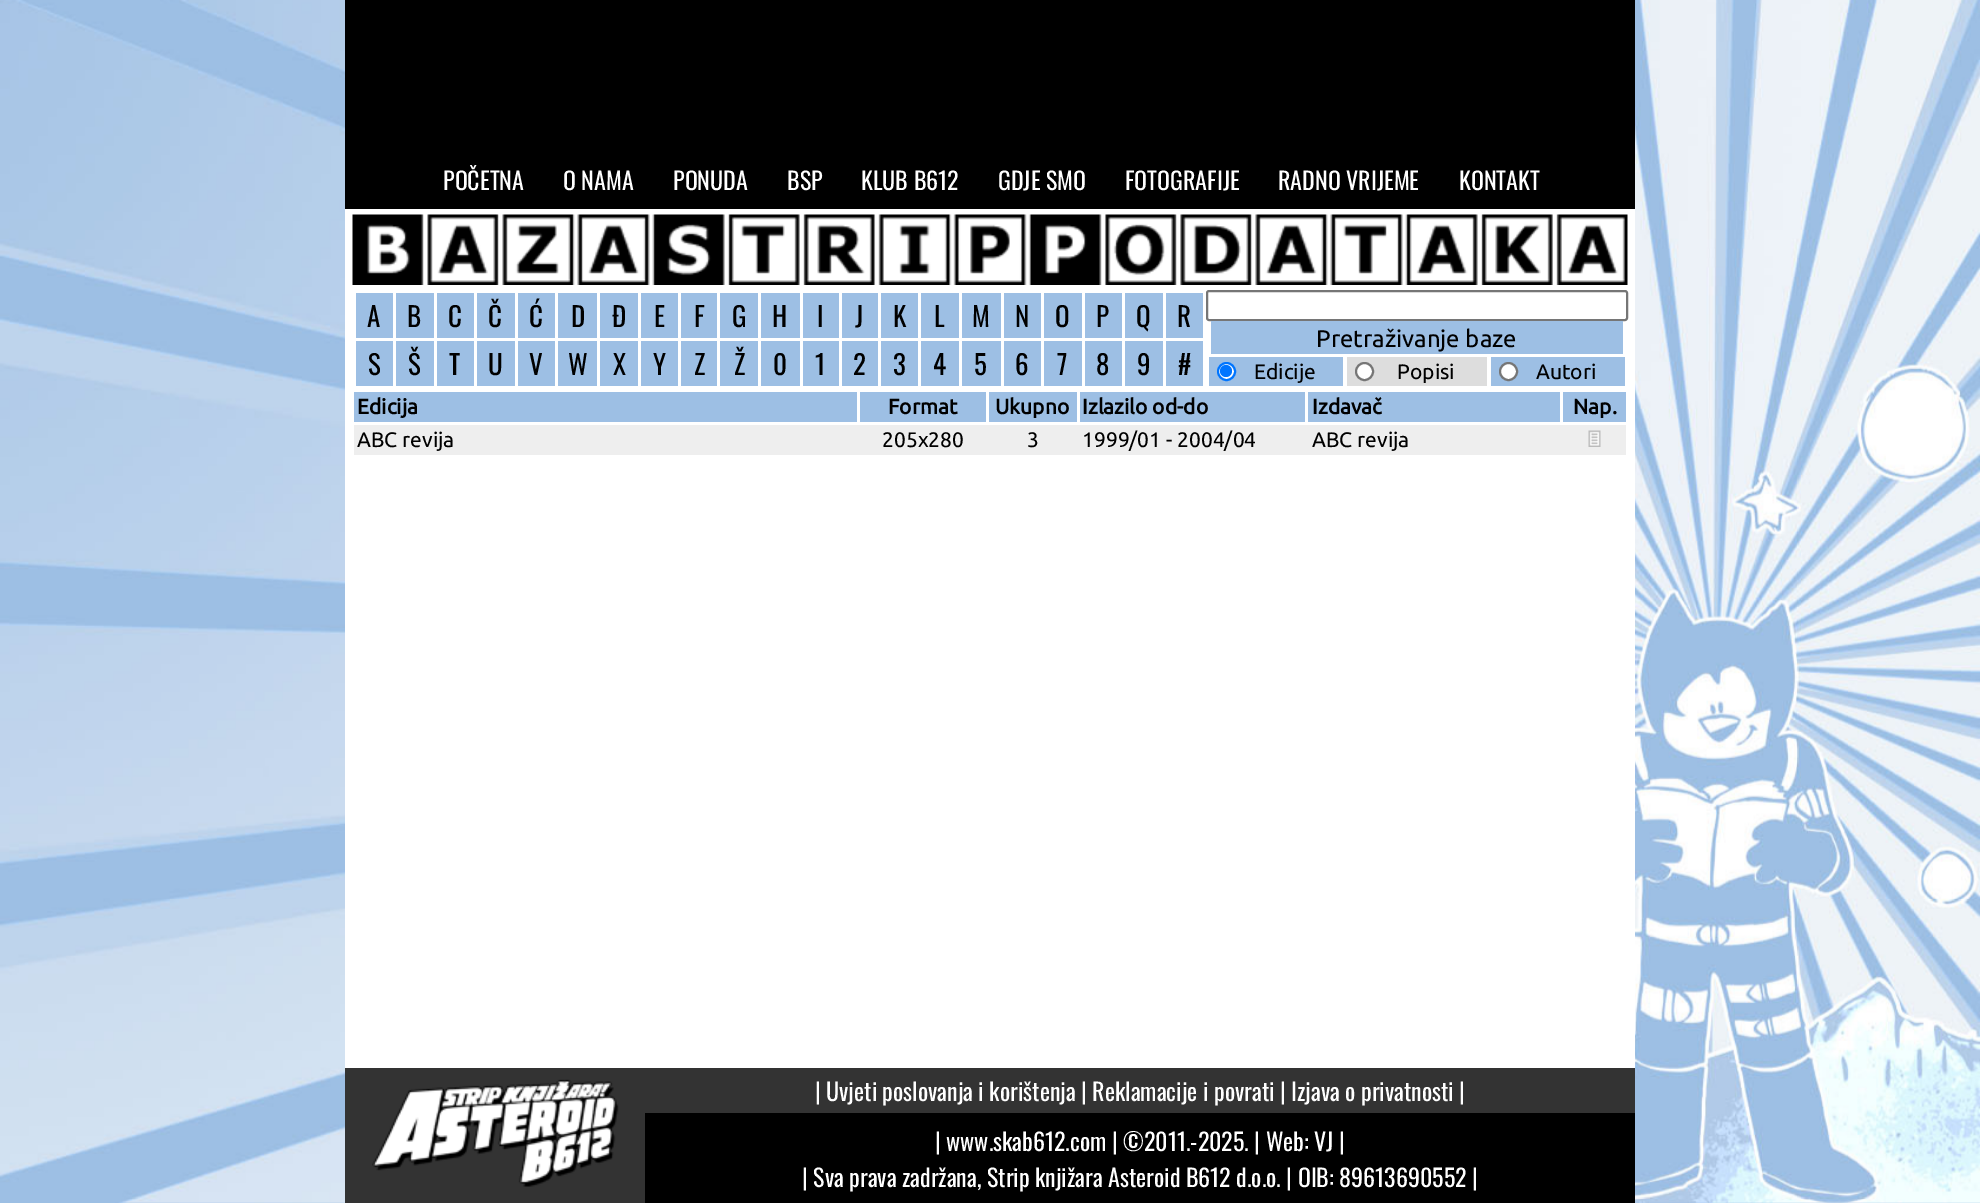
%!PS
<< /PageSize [1980 1203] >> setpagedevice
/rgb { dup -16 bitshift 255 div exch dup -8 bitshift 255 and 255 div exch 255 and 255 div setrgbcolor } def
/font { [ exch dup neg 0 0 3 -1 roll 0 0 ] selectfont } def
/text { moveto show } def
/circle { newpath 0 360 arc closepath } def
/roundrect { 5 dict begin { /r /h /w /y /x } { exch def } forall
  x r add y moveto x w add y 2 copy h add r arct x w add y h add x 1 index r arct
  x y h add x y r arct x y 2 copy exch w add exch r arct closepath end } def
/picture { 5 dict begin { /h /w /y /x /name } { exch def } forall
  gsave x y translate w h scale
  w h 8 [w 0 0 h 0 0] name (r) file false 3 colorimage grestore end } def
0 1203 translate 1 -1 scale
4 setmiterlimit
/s1 { /Oswald-Regular 24 font 16#FFFFFF rgb } def
/s2 { /Oswald-Regular 27 font 16#000000 rgb } def
/s3 { /Ubuntu-Regular 24 font 16#000000 rgb } def
/s4 { /Ubuntu-Regular 21 font 16#000000 rgb } def
/s5 { /Ubuntu-Bold 21 font 16#000000 rgb } def
16#FFFFFF rgb
0 0 1980 1203 rectfill
(pic1.raw) 0 1202 1980 1 picture
(pic2.raw) 0 0 1980 1203 picture
16#000000 rgb
345 0 1290 209 rectfill
s1
(POČETNA) 443 190 text
(O NAMA) 563 190 text
(PONUDA) 673 190 text
(BSP) 787 190 text
(KLUB B612) 861 190 text
(GDJE SMO) 998 190 text
(FOTOGRAFIJE) 1125 190 text
(RADNO VRIJEME) 1278 190 text
(KONTAKT) 1459 190 text
345 209 1290 859 rectfill
(pic3.raw) 352 214 1276 71 picture
16#9DBFE4 rgb
356 293 37 45 rectfill
s2
(A) 367 327 text
16#9DBFE4 rgb
396 293 38 45 rectfill
s2
(B) 407 327 text
16#9DBFE4 rgb
437 293 37 45 rectfill
s2
(C) 448 327 text
16#9DBFE4 rgb
477 293 38 45 rectfill
s2
(Č) 488 327 text
16#9DBFE4 rgb
518 293 37 45 rectfill
s2
(Ć) 529 327 text
16#9DBFE4 rgb
558 293 39 45 rectfill
s2
(D) 571 327 text
16#9DBFE4 rgb
600 293 38 45 rectfill
s2
(Đ) 612 327 text
16#9DBFE4 rgb
641 293 37 45 rectfill
s2
(E) 654 327 text
16#9DBFE4 rgb
681 293 36 45 rectfill
s2
(F) 694 327 text
16#9DBFE4 rgb
720 293 38 45 rectfill
s2
(G) 732 327 text
16#9DBFE4 rgb
761 293 39 45 rectfill
s2
(H) 772 327 text
16#9DBFE4 rgb
803 293 36 45 rectfill
s2
(I) 817 327 text
16#9DBFE4 rgb
842 293 36 45 rectfill
s2
(J) 855 327 text
16#9DBFE4 rgb
881 293 37 45 rectfill
s2
(K) 893 327 text
16#9DBFE4 rgb
921 293 38 45 rectfill
s2
(L) 934 327 text
16#9DBFE4 rgb
962 293 39 45 rectfill
s2
(M) 972 327 text
16#9DBFE4 rgb
1004 293 37 45 rectfill
s2
(N) 1015 327 text
16#9DBFE4 rgb
1044 293 38 45 rectfill
s2
(O) 1055 327 text
16#9DBFE4 rgb
1085 293 37 45 rectfill
s2
(P) 1096 327 text
16#9DBFE4 rgb
1125 293 38 45 rectfill
s2
(Q) 1136 327 text
16#9DBFE4 rgb
1166 293 37 45 rectfill
s2
(R) 1177 327 text
16#9DBFE4 rgb
356 341 37 45 rectfill
s2
(S) 368 375 text
16#9DBFE4 rgb
396 341 38 45 rectfill
s2
(Š) 408 375 text
16#9DBFE4 rgb
437 341 37 45 rectfill
s2
(T) 449 375 text
16#9DBFE4 rgb
477 341 38 45 rectfill
s2
(U) 488 375 text
16#9DBFE4 rgb
518 341 37 45 rectfill
s2
(V) 529 375 text
16#9DBFE4 rgb
558 341 39 45 rectfill
s2
(W) 568 375 text
16#9DBFE4 rgb
600 341 38 45 rectfill
s2
(X) 613 375 text
16#9DBFE4 rgb
641 341 37 45 rectfill
s2
(Y) 653 375 text
16#9DBFE4 rgb
681 341 36 45 rectfill
s2
(Z) 694 375 text
16#9DBFE4 rgb
720 341 38 45 rectfill
s2
(Ž) 734 375 text
16#9DBFE4 rgb
761 341 39 45 rectfill
s2
(0) 773 375 text
16#9DBFE4 rgb
803 341 36 45 rectfill
s2
(1) 815 375 text
16#9DBFE4 rgb
842 341 36 45 rectfill
s2
(2) 853 375 text
16#9DBFE4 rgb
881 341 37 45 rectfill
s2
(3) 893 375 text
16#9DBFE4 rgb
921 341 38 45 rectfill
s2
(4) 933 375 text
16#9DBFE4 rgb
962 341 39 45 rectfill
s2
(5) 974 375 text
16#9DBFE4 rgb
1004 341 37 45 rectfill
s2
(6) 1015 375 text
16#9DBFE4 rgb
1044 341 38 45 rectfill
s2
(7) 1057 375 text
16#9DBFE4 rgb
1085 341 37 45 rectfill
s2
(8) 1096 375 text
16#9DBFE4 rgb
1125 341 38 45 rectfill
s2
(9) 1137 375 text
16#9DBFE4 rgb
1166 341 37 45 rectfill
s2
(#) 1178 375 text
16#767676 rgb
2 setlinewidth
1207 291 420 29 2 roundrect stroke
16#9DBFE4 rgb
1211 321 412 33 rectfill
s3
(Pretraživanje baze) 1316 347 text
16#9DBFE4 rgb
1209 357 134 29 rectfill
16#FFFFFF rgb
1226.5 371.5 8.5 circle gsave fill grestore
16#0075FF rgb
stroke
1226 371 6 circle fill
s4
(Edicije) 1254 379 text
16#DDDDDD rgb
1347 357 140 29 rectfill
16#FFFFFF rgb
1364.5 371.5 8.5 circle gsave fill grestore
16#767676 rgb
stroke
s4
(Popisi) 1397 379 text
16#9DBFE4 rgb
1491 357 134 29 rectfill
16#FFFFFF rgb
1508.5 371.5 8.5 circle gsave fill grestore
16#767676 rgb
stroke
s4
(Autori) 1536 379 text
16#9DBFE4 rgb
354 392 503 30 rectfill
s5
(Edicija) 357 414 text
16#9DBFE4 rgb
860 392 126 30 rectfill
s5
(Format) 888 414 text
16#9DBFE4 rgb
989 392 88 30 rectfill
s5
(Ukupno) 995 414 text
16#9DBFE4 rgb
1080 392 225 30 rectfill
s5
(Izlazilo od-do) 1082 414 text
16#9DBFE4 rgb
1308 392 252 30 rectfill
s5
(Izdavač) 1312 414 text
16#9DBFE4 rgb
1563 392 63 30 rectfill
s5
(Nap.) 1573 414 text
16#EEEEEE rgb
354 425 1272 30 rectfill
s4
(ABC revija) 357 447 text
(205x280) 882 447 text
(3) 1027 447 text
(1999/01 - 2004/04) 1082 447 text
(ABC revija) 1312 447 text
(pic4.raw) 1588 430 13 17 picture
16#333333 rgb
345 1068 300 135 rectfill
(pic5.raw) 372 1079 247 108 picture
645 1068 990 45 rectfill
s1
(| Uvjeti poslovanja i korištenja | Reklamacije i povrati | Izjava o privatnosti |) 815 1101 text
16#000000 rgb
645 1113 990 90 rectfill
s1
(| www.skab612.com | ©2011.-2025. | Web: VJ |) 935 1151 text
(| Sva prava zadržana, Strip knjižara Asteroid B612 d.o.o. | OIB: 89613690552 |) 802 1187 text
showpage
